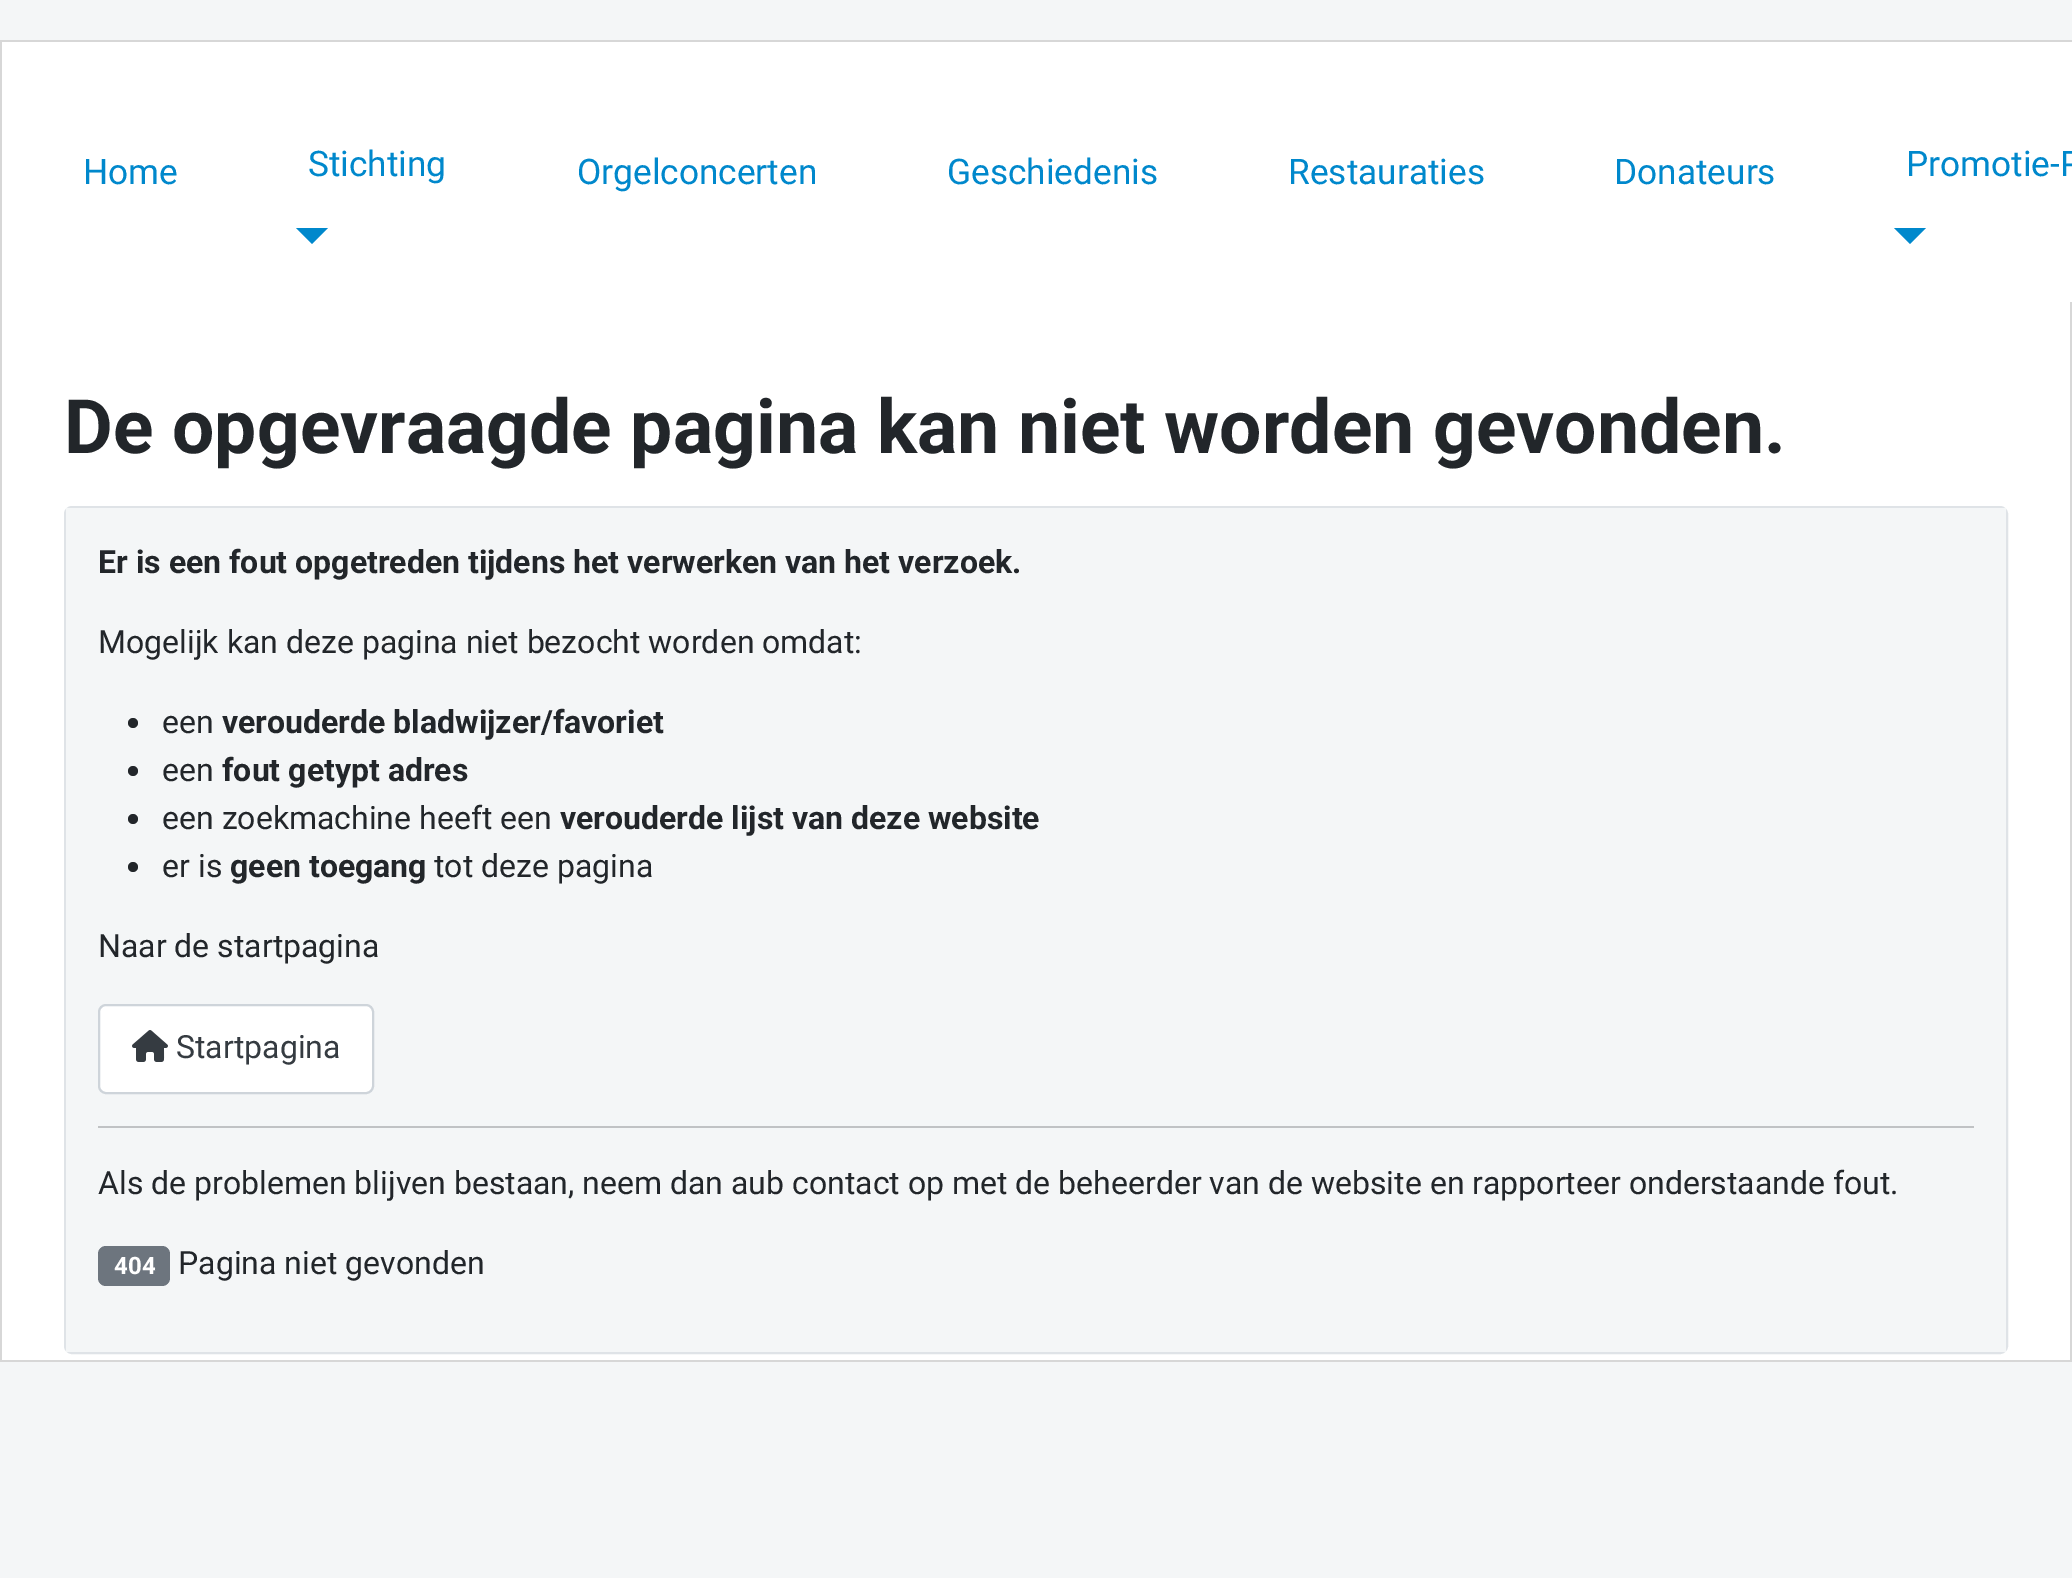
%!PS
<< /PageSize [2072 1578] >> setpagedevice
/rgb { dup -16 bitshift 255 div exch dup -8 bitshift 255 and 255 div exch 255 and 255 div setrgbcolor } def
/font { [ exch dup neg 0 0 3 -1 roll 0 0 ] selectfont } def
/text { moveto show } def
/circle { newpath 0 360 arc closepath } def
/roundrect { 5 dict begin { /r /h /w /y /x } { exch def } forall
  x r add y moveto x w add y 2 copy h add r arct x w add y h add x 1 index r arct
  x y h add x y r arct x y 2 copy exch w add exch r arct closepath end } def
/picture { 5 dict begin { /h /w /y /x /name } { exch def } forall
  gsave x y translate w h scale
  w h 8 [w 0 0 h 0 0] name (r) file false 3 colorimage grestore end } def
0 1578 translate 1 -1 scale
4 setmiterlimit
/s1 { /Roboto-Regular 35.25 font 16#0088CC rgb } def
/s2 { /Roboto-Bold 75.1 font 16#22262A rgb } def
/s3 { /Roboto-Bold 32 font 16#22262A rgb } def
/s4 { /Roboto-Regular 32 font 16#22262A rgb } def
/s5 { /Roboto-Regular 32 font 16#353B41 rgb } def
/s6 { /Roboto-Bold 24 font 16#FFFFFF rgb } def
16#F4F6F7 rgb
0 0 2072 1578 rectfill
16#FFFFFF rgb
2 42 2070 260 rectfill
16#D7D7D7 rgb
0 40 2072 2 rectfill
0 40 2 262 rectfill
s1
(Home) 83 184 text
(Stichting) 308 176 text
296 228 moveto 328 228 lineto 312 244 lineto closepath fill
(Orgelconcerten) 577 184 text
(Geschiedenis) 947 184 text
(Restauraties) 1288 184 text
(Donateurs) 1614 184 text
(Promotie-P) 1906 176 text
1894 228 moveto 1926 228 lineto 1910 244 lineto closepath fill
16#FFFFFF rgb
2 302 2068 1058 rectfill
16#D7D7D7 rgb
2070 302 2 1060 rectfill
0 1360 2072 2 rectfill
0 302 2 1060 rectfill
s2
(De opgevraagde pagina kan niet worden gevonden.) 64 453 text
16#DFE3E7 rgb
2 setlinewidth
65 507 1942 846 7 roundrect stroke
16#F4F6F7 rgb
66 508 1940 844 rectfill
s3
(Er is een fout opgetreden tijdens het verwerken van het verzoek.) 98 573 text
s4
(Mogelijk kan deze pagina niet bezocht worden omdat:) 98 653 text
133 723 5 circle fill
(een) 162 733 text
s3
(verouderde bladwijzer/favoriet) 222 733 text
133 771 5 circle fill
s4
(een) 162 781 text
s3
(fout getypt adres) 222 781 text
133 819 5 circle fill
s4
(een zoekmachine heeft een) 162 829 text
s3
(verouderde lijst van deze website) 560 829 text
133 867 5 circle fill
s4
(er is) 162 877 text
s3
(geen toegang) 230 877 text
s4
(tot deze pagina) 434 877 text
(Naar de startpagina) 98 957 text
16#FFFFFF rgb
99 1005 274 88 7 roundrect gsave fill grestore
16#CED4DA rgb
stroke
(pic1.raw) 132 1030 36 32 picture
s5
(Startpagina) 176 1058 text
16#C0C2C4 rgb
98 1126 1876 2 rectfill
s4
(Als de problemen blijven bestaan, neem dan aub contact op met de beheerder van de website en rapporteer onderstaande fout.) 98 1194 text
16#6D757E rgb
98 1246 72 40 8 roundrect fill
s6
(404) 114 1274 text
s4
(Pagina niet gevonden) 178 1274 text
showpage
